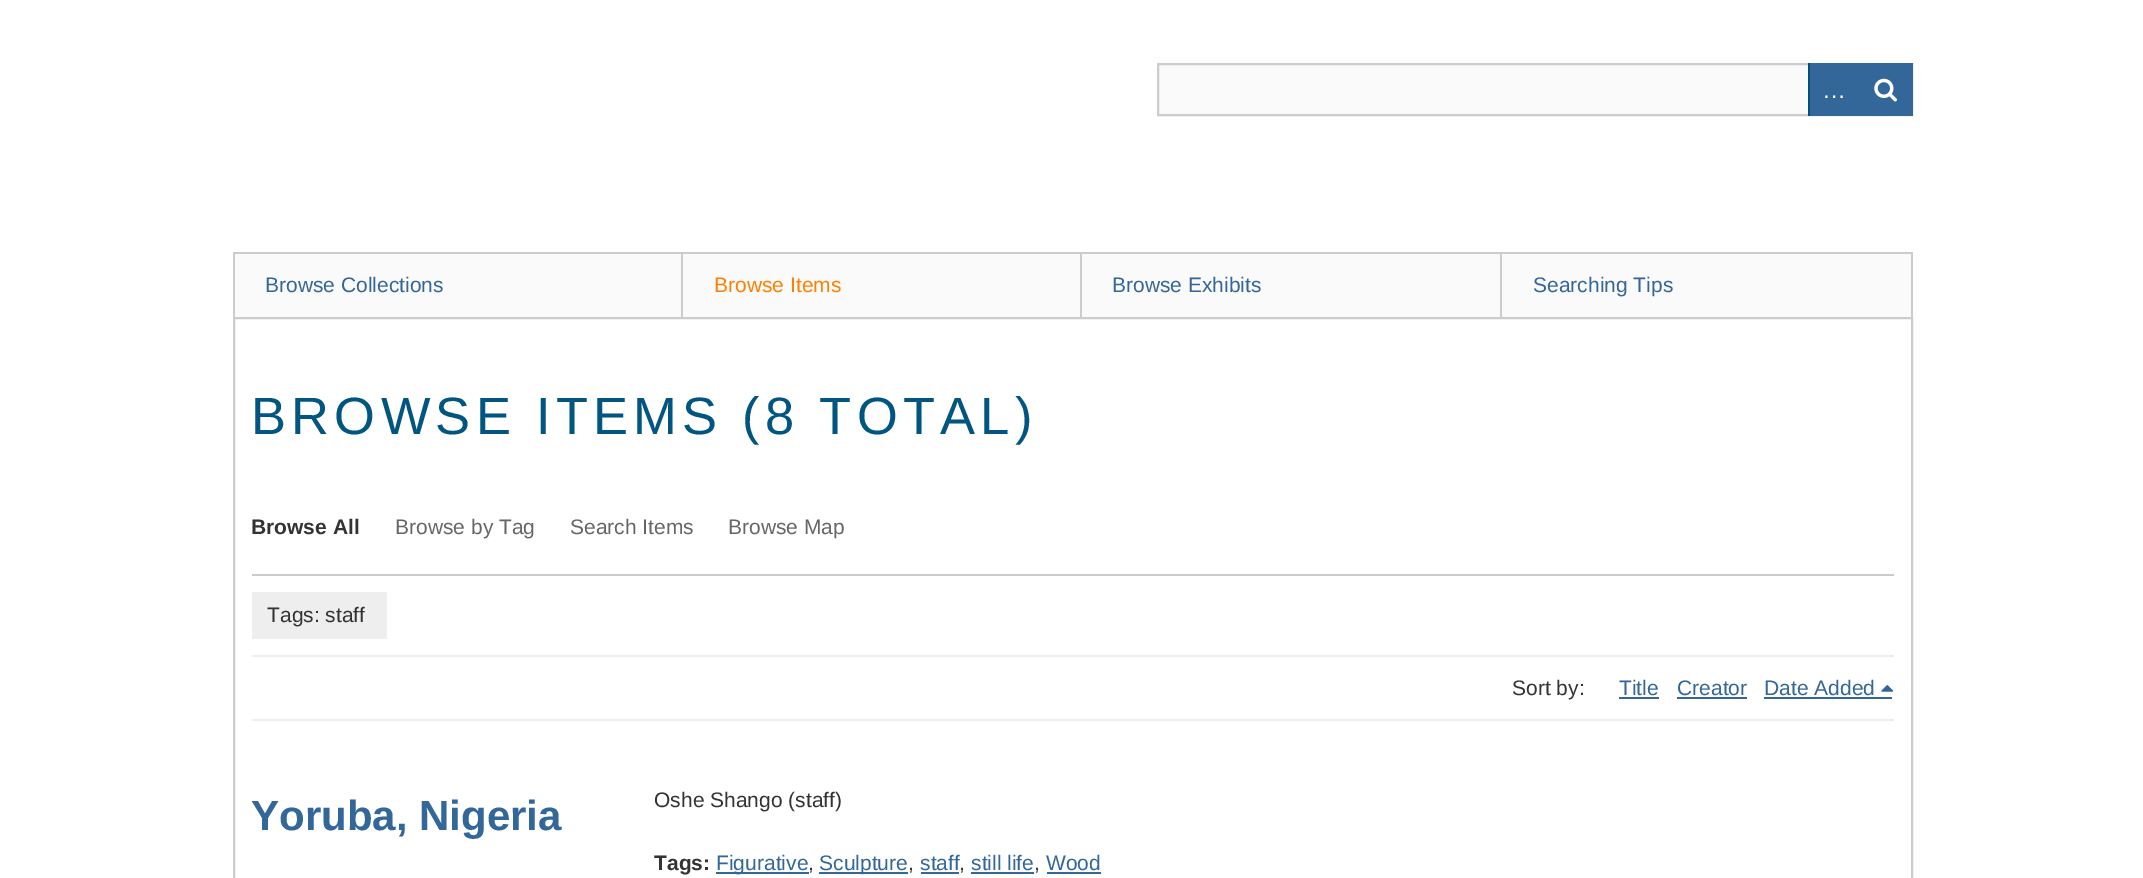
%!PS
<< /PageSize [2143 878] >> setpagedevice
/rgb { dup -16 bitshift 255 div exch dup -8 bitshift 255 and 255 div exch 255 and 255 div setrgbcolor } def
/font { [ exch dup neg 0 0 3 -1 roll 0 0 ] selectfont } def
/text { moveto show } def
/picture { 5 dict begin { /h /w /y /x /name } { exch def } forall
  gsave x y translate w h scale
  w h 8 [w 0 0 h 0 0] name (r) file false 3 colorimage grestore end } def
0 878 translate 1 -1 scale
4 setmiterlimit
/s1 { /LiberationSans-Regular 24 font 16#FFFFFF rgb } def
/s2 { /LiberationSans-Regular 21 font 16#336699 rgb } def
/s3 { /LiberationSans-Regular 21 font 16#FF8000 rgb } def
/s4 { /LiberationSans-Bold 21 font 16#333333 rgb } def
/s5 { /LiberationSans-Regular 21 font 16#666666 rgb } def
/s6 { /LiberationSans-Regular 21 font 16#333333 rgb } def
/s7 { /LiberationSans-Bold 42 font 16#336699 rgb } def
16#FFFFFF rgb
0 0 2143 878 rectfill
16#FAFAFA rgb
1159 65 649 49 rectfill
16#CCCCCC rgb
2 setlinewidth
1158 64 754 51 rectstroke
16#005177 rgb
1808 63 2 53 rectfill
16#336699 rgb
1810 63 103 53 rectfill
s1
(…) 1822 98 text
(pic1.raw) 1874 78 23 24 picture
16#CCCCCC rgb
1911 252 2 65 rectfill
16#FAFAFA rgb
235 254 446 63 rectfill
16#CCCCCC rgb
233 252 448 2 rectfill
233 252 2 65 rectfill
s2
(Browse Collections) 265 292 text
16#FAFAFA rgb
683 254 397 63 rectfill
16#CCCCCC rgb
681 252 1230 2 rectfill
681 252 2 65 rectfill
s3
(Browse Items) 714 292 text
16#FAFAFA rgb
1082 254 418 63 rectfill
16#CCCCCC rgb
1080 252 2 65 rectfill
s2
(Browse Exhibits) 1112 292 text
16#FAFAFA rgb
1502 254 409 63 rectfill
16#CCCCCC rgb
1500 252 2 65 rectfill
s2
(Searching Tips) 1533 292 text
16#CCCCCC rgb
234 318 1678 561 rectstroke
/LiberationSans-Regular 52.5 font
16#015581 rgb
251 434 moveto 5.25 0 (BROWSE ITEMS \(8 TOTAL\)) ashow
16#CCCCCC rgb
252 574 1642 2 rectfill
s4
(Browse All) 251 534 text
s5
(Browse by Tag) 395 534 text
(Search Items) 570 534 text
(Browse Map) 728 534 text
16#EEEEEE rgb
252 655 1642 2 rectfill
252 592 135 47 rectfill
s6
(Tags: staff) 267 622 text
(Sort by:) 1512 695 text
s2
(Title) 1619 695 text
1619 697 40 2 rectfill
(Creator) 1677 695 text
1677 697 70 2 rectfill
(Date Added) 1764 695 text
1764 697 128 2 rectfill
(pic2.raw) 1881 685 13 7 picture
16#EEEEEE rgb
252 719 1642 2 rectfill
s7
(Yoruba, Nigeria) 251 830 text
s6
(Oshe Shango \(staff\)) 654 807 text
s4
(Tags:) 654 870 text
16#336699 rgb
716 872 93 2 rectfill
s2
(Figurative) 716 870 text
s6
(,) 808 870 text
16#336699 rgb
819 872 89 2 rectfill
(Sculpture) 819 870 text
s6
(,) 908 870 text
s2
(staff) 920 870 text
921 872 38 2 rectfill
s6
(,) 959 870 text
s2
(still life) 971 870 text
971 872 63 2 rectfill
s6
(,) 1034 870 text
s2
(Wood) 1046 870 text
1047 872 54 2 rectfill
showpage
